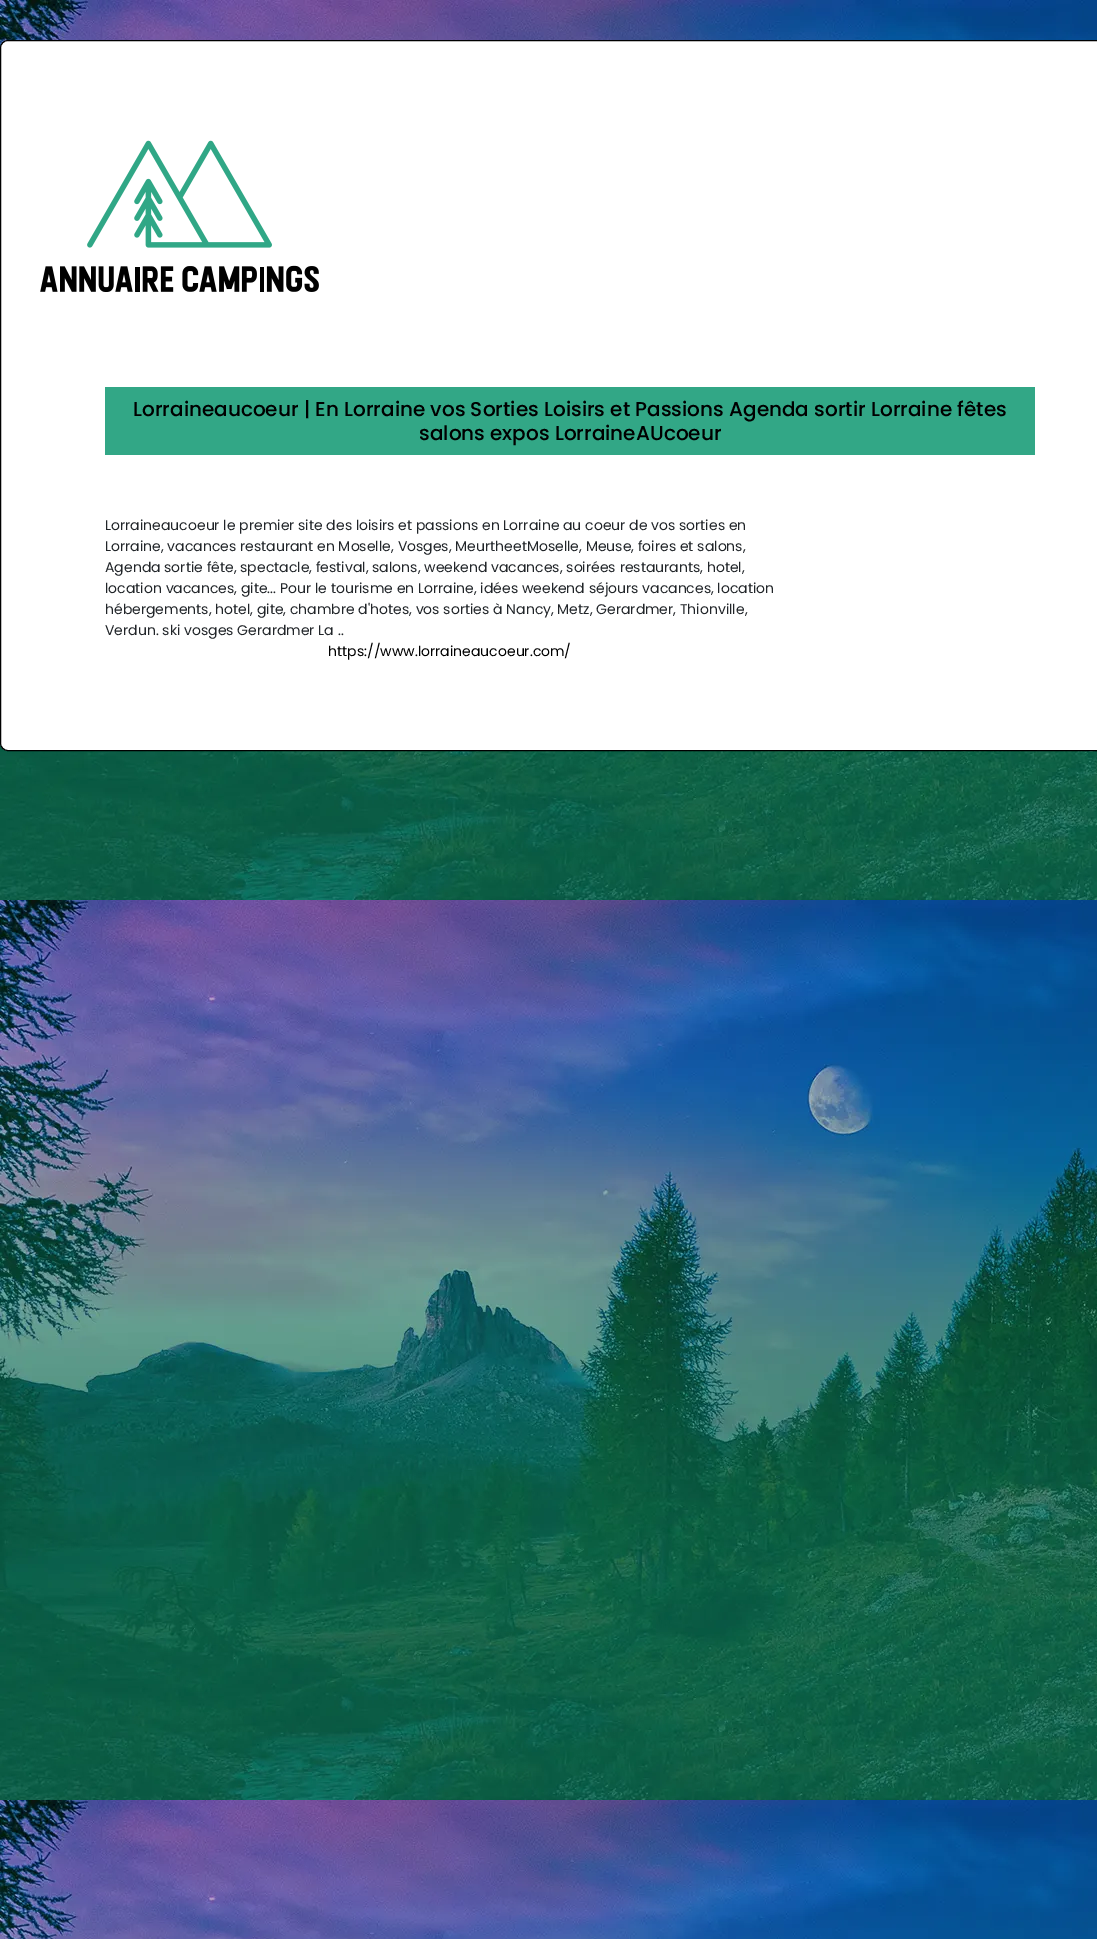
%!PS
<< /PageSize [1097 1939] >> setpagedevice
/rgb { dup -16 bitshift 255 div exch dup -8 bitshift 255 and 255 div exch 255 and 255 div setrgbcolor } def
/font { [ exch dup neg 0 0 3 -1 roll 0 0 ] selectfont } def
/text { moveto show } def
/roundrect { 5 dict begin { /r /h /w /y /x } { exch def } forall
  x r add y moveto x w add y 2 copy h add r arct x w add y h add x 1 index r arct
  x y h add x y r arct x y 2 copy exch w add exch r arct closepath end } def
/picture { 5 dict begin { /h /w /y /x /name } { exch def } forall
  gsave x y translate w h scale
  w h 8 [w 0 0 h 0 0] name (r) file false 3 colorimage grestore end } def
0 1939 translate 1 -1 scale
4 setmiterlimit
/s1 { /Poppins-Medium 20 font 16#000000 rgb } def
/s2 { /Poppins-Regular 14 font 16#212529 rgb } def
/s3 { /Poppins-Regular 14 font 16#000000 rgb } def
16#FFFFFF rgb
0 0 1097 1939 rectfill
(pic1.raw) 0 0 1097 1939 picture
0.5 40.5 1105 710 7.5 roundrect gsave fill grestore
16#000000 rgb
stroke
(pic2.raw) 40 140 279 152 picture
16#32A786 rgb
105 387 930 68 rectfill
s1
(Lorraineaucoeur | En Lorraine vos Sorties Loisirs et Passions Agenda sortir Lorraine fêtes) 133 416 text
(salons expos LorraineAUcoeur) 419 440 text
s2
(Lorraineaucoeur le premier site des loisirs et passions en Lorraine au coeur de vos sorties en) 105 530 text
(Lorraine, vacances restaurant en Moselle, Vosges, MeurtheetMoselle, Meuse, foires et salons,) 105 551 text
(Agenda sortie fête, spectacle, festival, salons, weekend vacances, soirées restaurants, hotel,) 105 572 text
(location vacances, gite... Pour le tourisme en Lorraine, idées weekend séjours vacances, location) 105 593 text
(hébergements, hotel, gite, chambre d'hotes, vos sorties à Nancy, Metz, Gerardmer, Thionville,) 105 614 text
(Verdun. ski vosges Gerardmer La ..) 105 635 text
s3
(https://www.lorraineaucoeur.com/) 328 656 text
showpage
